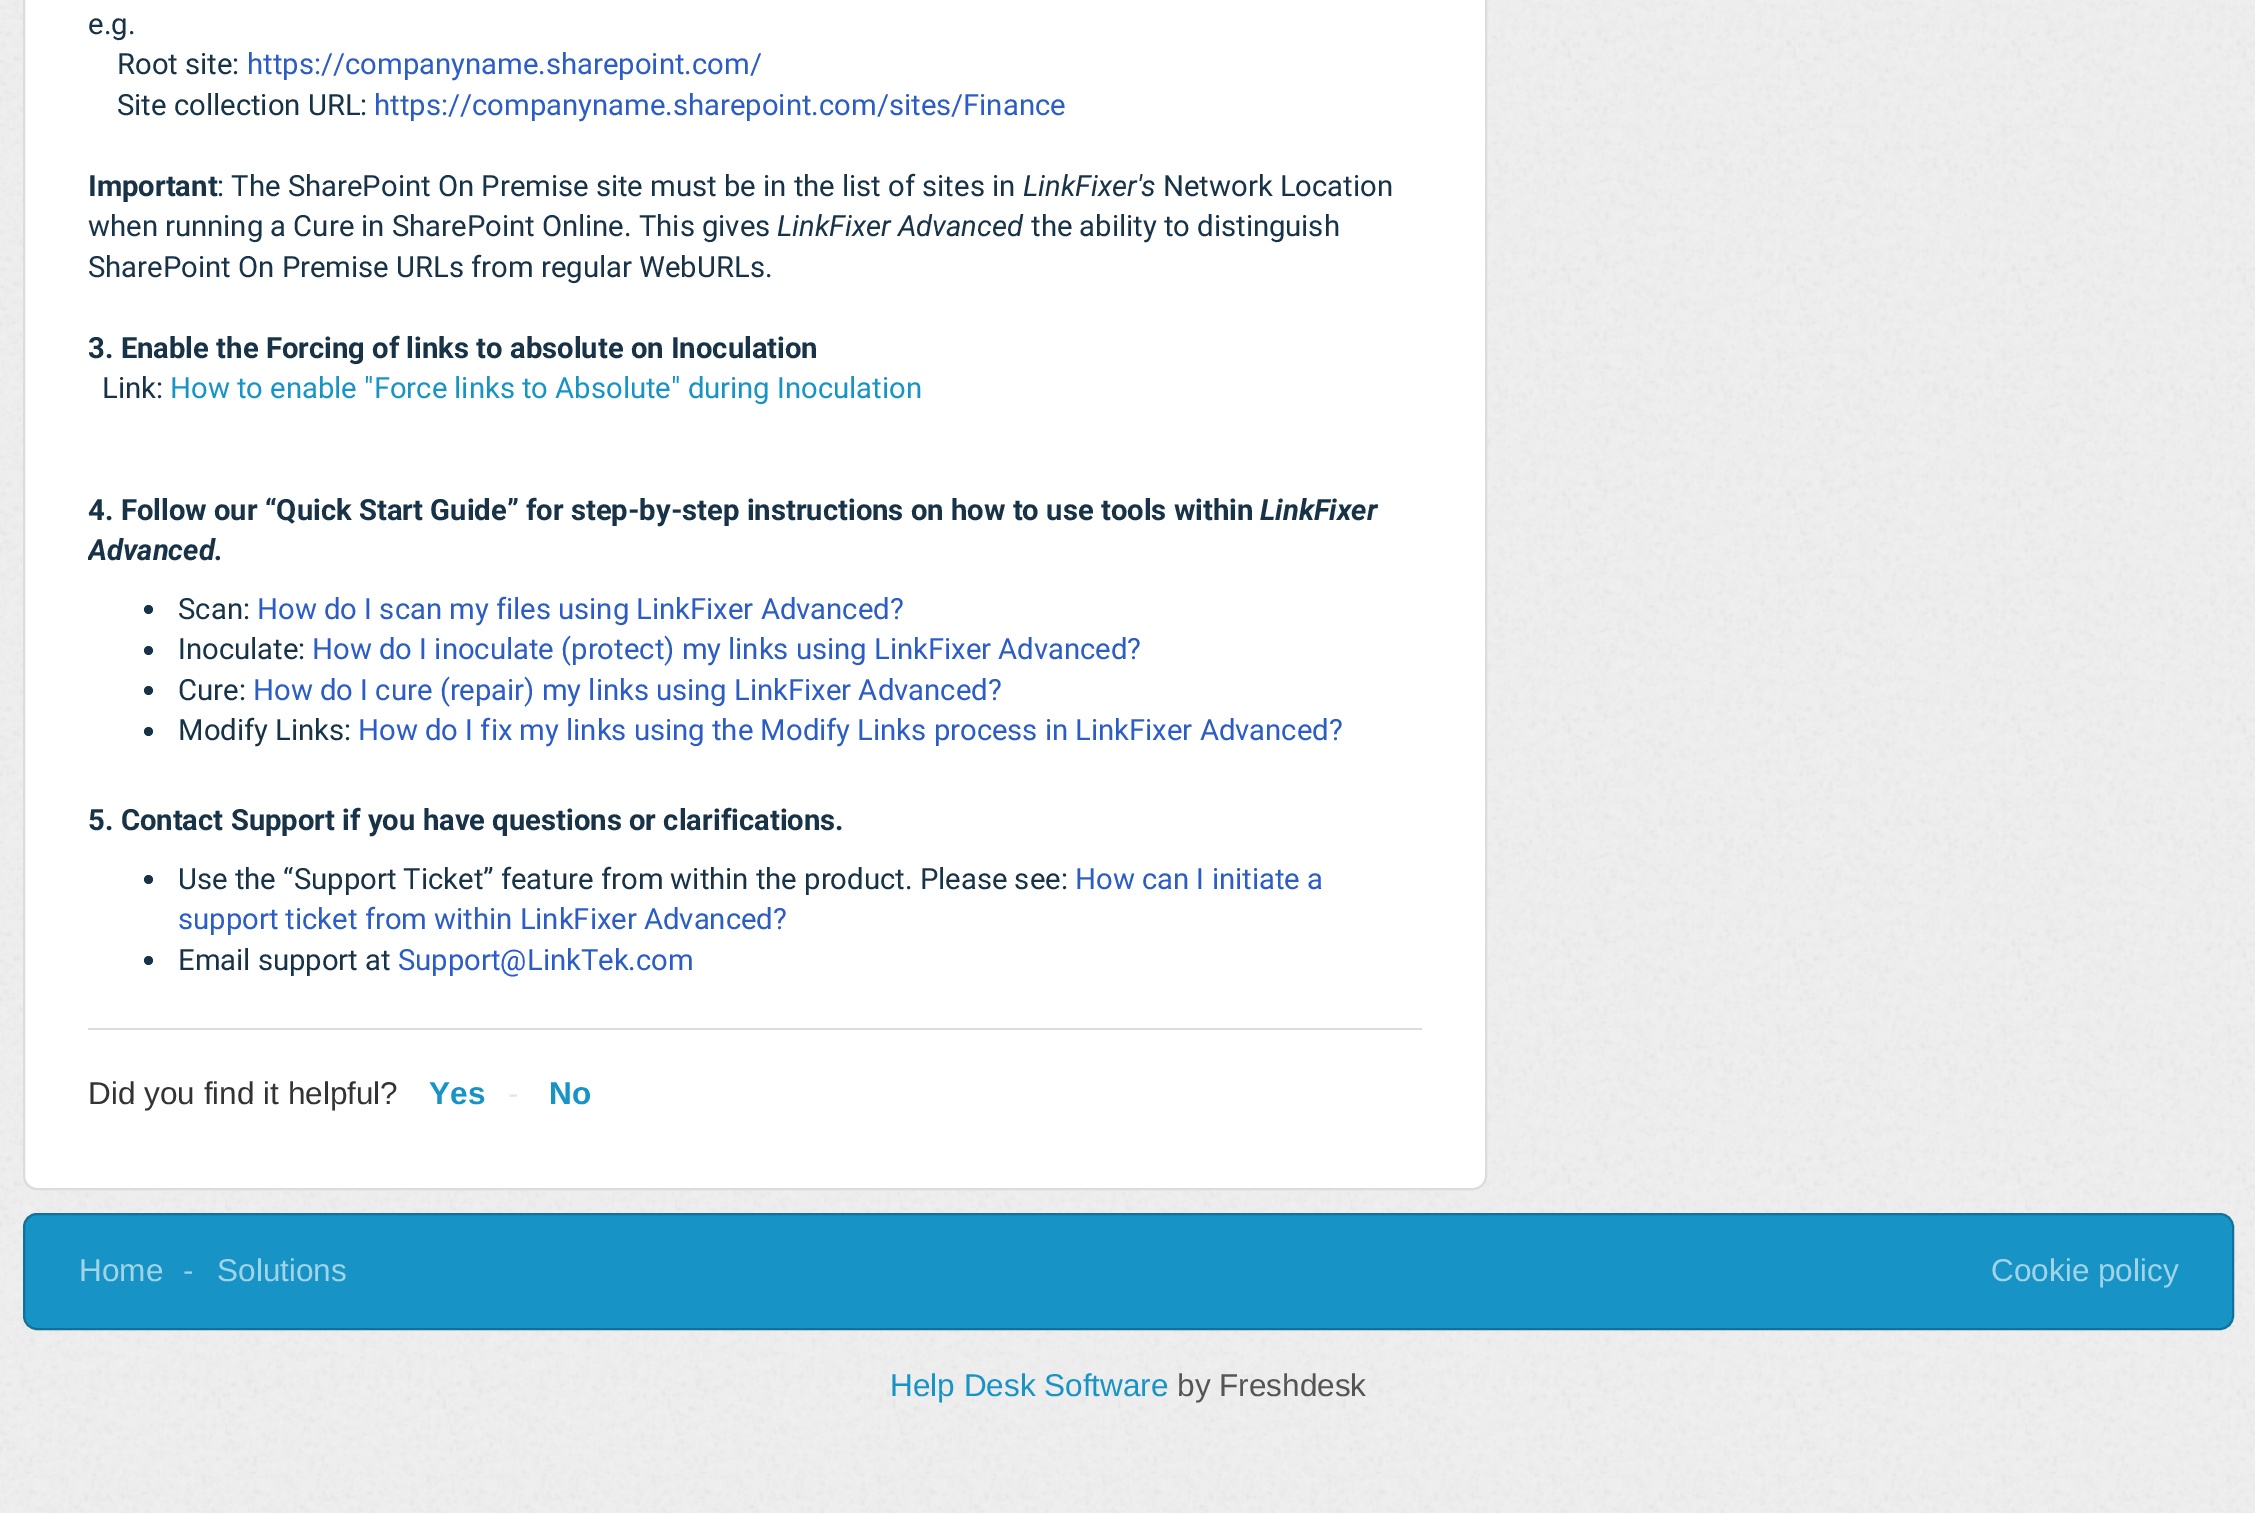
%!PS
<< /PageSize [2255 1513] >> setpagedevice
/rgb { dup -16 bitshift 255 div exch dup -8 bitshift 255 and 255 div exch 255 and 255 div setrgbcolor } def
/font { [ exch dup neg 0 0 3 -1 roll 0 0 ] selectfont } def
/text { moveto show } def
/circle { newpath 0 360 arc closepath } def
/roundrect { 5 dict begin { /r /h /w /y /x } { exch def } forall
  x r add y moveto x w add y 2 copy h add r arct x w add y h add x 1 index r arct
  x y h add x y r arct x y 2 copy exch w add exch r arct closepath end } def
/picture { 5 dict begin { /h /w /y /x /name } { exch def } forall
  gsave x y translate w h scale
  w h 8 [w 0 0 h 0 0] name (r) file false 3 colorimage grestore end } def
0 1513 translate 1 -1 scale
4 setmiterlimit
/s1 { /Roboto-Regular 29.25 font 16#183247 rgb } def
/s2 { /Roboto-Regular 29.25 font 16#2C5CC5 rgb } def
/s3 { /Roboto-Bold 29.25 font 16#183247 rgb } def
/s4 { /Roboto-Italic 29.25 font 16#183247 rgb } def
/s5 { /Roboto-Regular 29.25 font 16#1793C6 rgb } def
/s6 { /Roboto-BoldItalic 29.25 font 16#183247 rgb } def
/s7 { /LiberationSans-Regular 31.5 font 16#333333 rgb } def
/s8 { /LiberationSans-Bold 31.5 font 16#1793C6 rgb } def
/s9 { /LiberationSans-Regular 31.5 font 16#E5E5E5 rgb } def
/s10 { /LiberationSans-Regular 31.5 font 16#A2D4E8 rgb } def
/s11 { /LiberationSans-Regular 31.5 font 16#1793C6 rgb } def
/s12 { /LiberationSans-Regular 31.5 font 16#555555 rgb } def
16#EFEFEF rgb
0 0 2255 1513 rectfill
(pic1.raw) 0 0 2255 1513 picture
16#FFFFFF rgb
24 -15 1462 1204 13 roundrect gsave fill grestore
16#DCDCDC rgb
2 setlinewidth
stroke
s1
(e.g.) 88 34 text
(Root site:) 117 74 text
s2
(https://companyname.sharepoint.com/) 247 74 text
s1
(Site collection URL:) 117 115 text
s2
(https://companyname.sharepoint.com/sites/Finance) 374 115 text
s3
(Important) 88 196 text
s1
(: The SharePoint On Premise site must be in the list of sites in) 217 196 text
s4
(LinkFixer's) 1023 196 text
s1
(Network Location) 1163 196 text
(when running a Cure in SharePoint Online. This gives) 88 236 text
s4
(LinkFixer Advanced) 777 236 text
s1
(the ability to distinguish) 1031 236 text
(SharePoint On Premise URLs from regular WebURLs.) 88 277 text
s3
(3. Enable the Forcing of links to absolute on Inoculation) 88 358 text
s1
(Link:) 102 398 text
s5
(How to enable "Force links to Absolute" during Inoculation) 170 398 text
s3
(4. Follow our “Quick Start Guide” for step-by-step instructions on how to use tools within) 88 520 text
s6
(LinkFixer) 1260 520 text
gsave
88 0 1334 990 rectclip
(Advanced.) 88 560 text
grestore
148.5 609.5 4.5 circle fill
s1
(Scan:) 178 619 text
s2
(How do I scan my files using LinkFixer Advanced?) 257 619 text
16#183247 rgb
148.5 650.5 4.5 circle fill
(Inoculate:) 178 659 text
s2
(How do I inoculate \(protect\) my links using LinkFixer Advanced?) 312 659 text
16#183247 rgb
148.5 690.5 4.5 circle fill
(Cure:) 178 700 text
s2
(How do I cure \(repair\) my links using LinkFixer Advanced?) 253 700 text
16#183247 rgb
148.5 731.5 4.5 circle fill
(Modify Links:) 178 740 text
s2
(How do I fix my links using the Modify Links process in LinkFixer Advanced?) 358 740 text
s3
(5. Contact Support if you have questions or clarifications.) 88 830 text
148.5 879.5 4.5 circle fill
s1
(Use the “Support Ticket” feature from within the product. Please see:) 178 889 text
s2
(How can I initiate a) 1075 889 text
(support ticket from within LinkFixer Advanced?) 178 929 text
16#183247 rgb
148.5 960.5 4.5 circle fill
(Email support at) 178 970 text
s2
(Support@LinkTek.com) 398 970 text
16#DCDCDC rgb
88 1028 1334 2 rectfill
s7
(Did you find it helpful?) 88 1104 text
s8
(Yes) 429 1104 text
s9
(-) 508 1104 text
s8
(No) 549 1104 text
24 1214 2209 115 13 roundrect gsave fill grestore
16#127198 rgb
stroke
s10
(Home) 79 1281 text
(-) 183 1281 text
(Solutions) 217 1281 text
(Cookie policy) 1991 1281 text
s11
(Help Desk Software) 890 1396 text
s12
(by Freshdesk) 1177 1396 text
showpage
